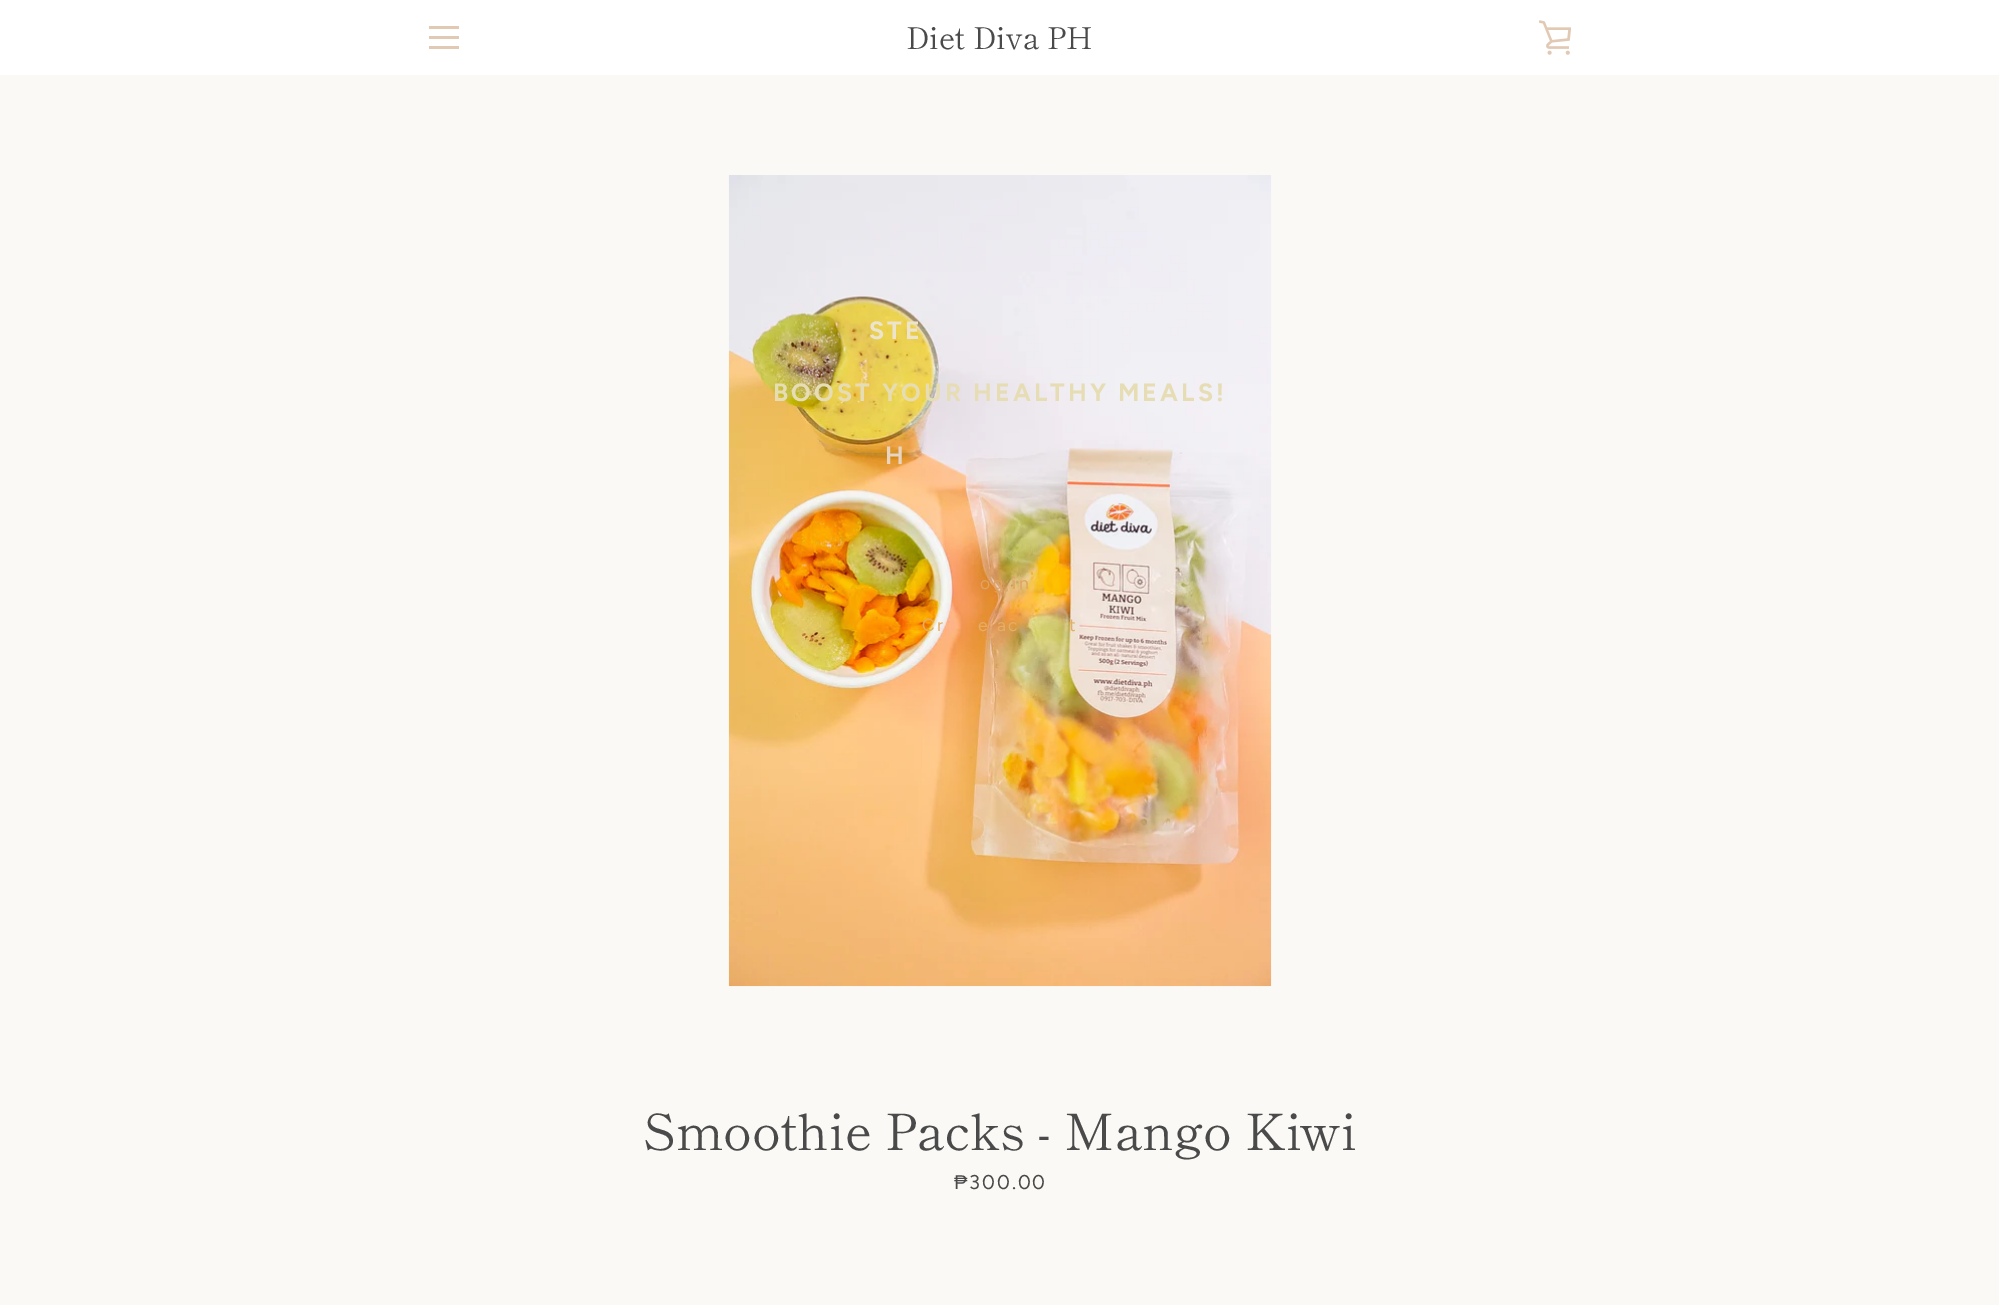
%!PS
<< /PageSize [1999 1305] >> setpagedevice
/rgb { dup -16 bitshift 255 div exch dup -8 bitshift 255 and 255 div exch 255 and 255 div setrgbcolor } def
/font { [ exch dup neg 0 0 3 -1 roll 0 0 ] selectfont } def
/text { moveto show } def
/picture { 5 dict begin { /h /w /y /x /name } { exch def } forall
  gsave x y translate w h scale
  w h 8 [w 0 0 h 0 0] name (r) file false 3 colorimage grestore end } def
0 1305 translate 1 -1 scale
4 setmiterlimit
/s1 { /ShipporiMincho-Regular 30 font 16#4A4A4A rgb } def
/s2 { /ShipporiMincho-Regular 50 font 16#4A4A4A rgb } def
16#FAF9F6 rgb
0 0 1999 1305 rectfill
16#FFFFFF rgb
0 0 1999 75 rectfill
s1
(Diet Diva PH) 906 49 text
(pic1.raw) 1539 20 32 35 picture
16#E1C9B4 rgb
429 26 30 3 rectfill
429 36 30 3 rectfill
429 46 30 3 rectfill
(pic2.raw) 728 175 544 812 picture
/Figtree-Bold 25 font
16#ECE4CC rgb
869 339 moveto 3.1 0 (STE) ashow
16#E7DDB5 rgb
773 401 moveto 3.1 0 (BOOST YOUR HEALTHY MEALS!) ashow
16#E9D3C1 rgb
885 464 moveto 3.1 0 (H) ashow
/Figtree-Regular 17.5 font
16#E1A35E rgb
980 589 moveto 2.5 0 (og in) ashow
16#E4AF64 rgb
922 631 moveto 2.5 0 (Cr) ashow
978 631 moveto 2.5 0 (e ac) ashow
1069 631 moveto 2.5 0 (t) ashow
s2
(Smoothie Packs - Mango Kiwi) 643 1150 text
/LiberationSans-Regular 20 font
954 1189 moveto 2 0 (₱) ashow
/Figtree-Regular 20 font
969 1189 moveto 2 0 (300.00) ashow
showpage
